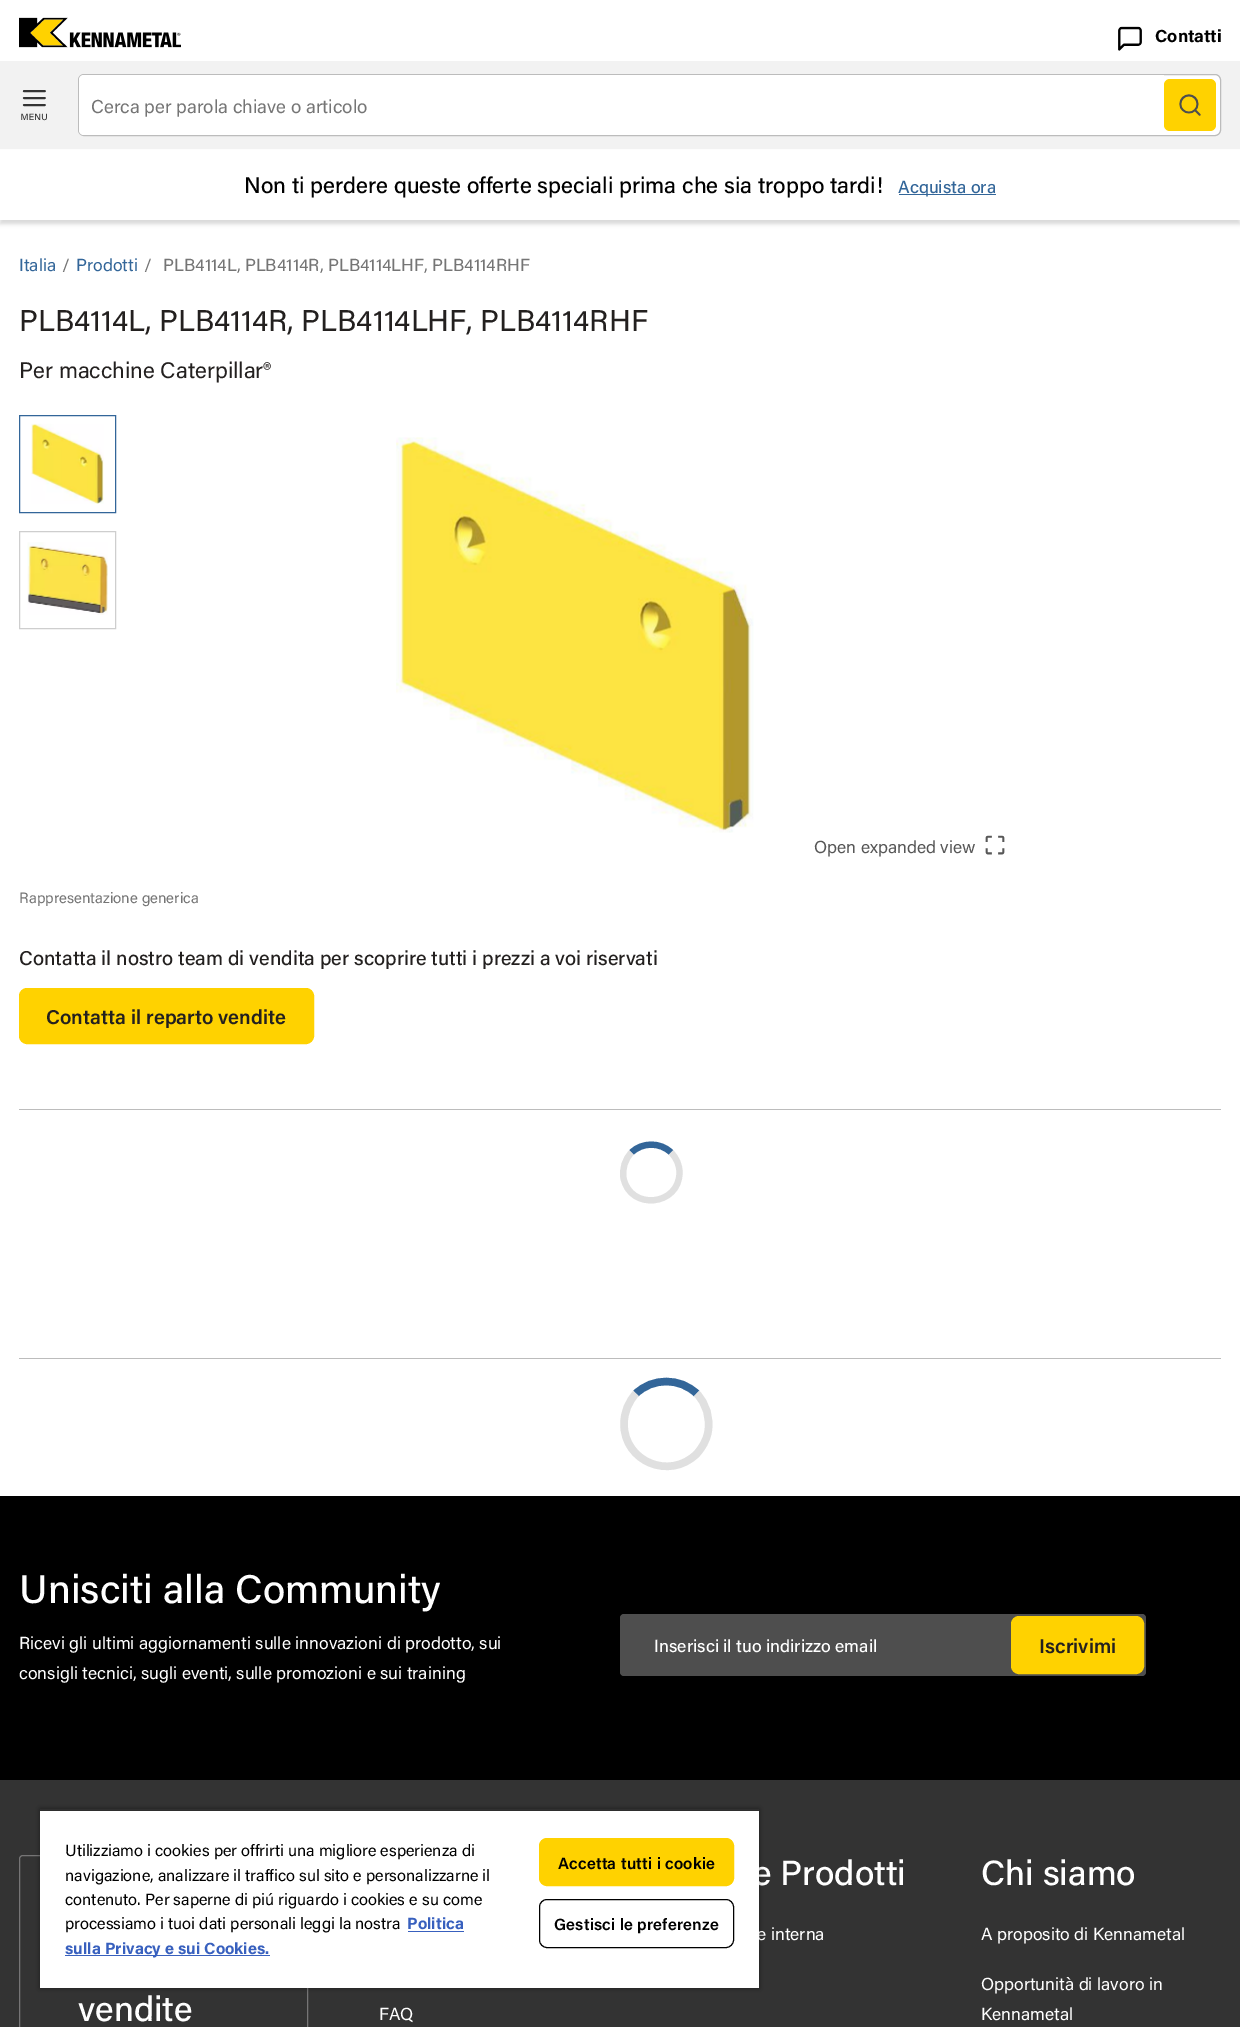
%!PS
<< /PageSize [1240 2027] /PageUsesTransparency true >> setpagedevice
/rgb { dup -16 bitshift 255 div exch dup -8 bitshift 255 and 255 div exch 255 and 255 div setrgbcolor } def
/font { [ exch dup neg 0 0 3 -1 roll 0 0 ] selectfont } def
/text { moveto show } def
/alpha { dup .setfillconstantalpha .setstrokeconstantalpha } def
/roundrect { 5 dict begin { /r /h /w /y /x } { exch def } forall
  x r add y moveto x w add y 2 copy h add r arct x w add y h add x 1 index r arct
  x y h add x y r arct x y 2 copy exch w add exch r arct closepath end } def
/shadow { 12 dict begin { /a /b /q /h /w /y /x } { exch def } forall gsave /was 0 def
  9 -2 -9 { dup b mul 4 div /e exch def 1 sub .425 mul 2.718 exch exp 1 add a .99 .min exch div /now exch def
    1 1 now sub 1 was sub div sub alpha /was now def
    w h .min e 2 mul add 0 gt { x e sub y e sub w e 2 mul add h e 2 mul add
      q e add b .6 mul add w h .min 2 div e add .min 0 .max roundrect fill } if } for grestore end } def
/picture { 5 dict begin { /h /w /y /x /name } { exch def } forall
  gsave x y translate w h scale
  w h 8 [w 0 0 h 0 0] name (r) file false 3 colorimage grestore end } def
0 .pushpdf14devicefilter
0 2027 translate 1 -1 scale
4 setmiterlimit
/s1 { /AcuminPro-Bold 17.5 font 16#000000 rgb } def
/s2 { /AcuminPro-Regular 18.75 font 16#757575 rgb } def
/s3 { /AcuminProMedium-Medium 22.5 font 16#000000 rgb } def
/s4 { /AcuminProMedium-Medium 17.5 font 16#336699 rgb } def
/s5 { /AcuminPro-Regular 17.5 font 16#336699 rgb } def
/s6 { /AcuminPro-Regular 17.5 font 16#757575 rgb } def
/s7 { /AcuminPro-Regular 30 font 16#23201F rgb } def
/s8 { /AcuminPro-Regular 22.5 font 16#23201F rgb } def
/s9 { /AcuminPro-Regular 17.5 font 16#575757 rgb } def
/s10 { /AcuminPro-Regular 15 font 16#757575 rgb } def
/s11 { /AcuminProMedium-Medium 20 font 16#23201F rgb } def
/s12 { /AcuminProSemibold-SemiBold 20 font 16#23201F rgb } def
/s13 { /AcuminProMedium-Medium 40 font 16#FFFFFF rgb } def
/s14 { /AcuminPro-Regular 17.5 font 16#FFFFFF rgb } def
/s15 { /AcuminProMedium-Medium 17.5 font 16#FFFFFF rgb } def
/s16 { /AcuminProMedium-Medium 35 font 16#FFFFFF rgb } def
/s17 { /AcuminPro-Regular 16.25 font 16#000000 rgb } def
/s18 { /AcuminPro-Bold 16.25 font 16#3860BE rgb } def
16#FFFFFF rgb
0 0 1240 2027 rectfill
(pic1.raw) 19 17 162 31 picture
(pic2.raw) 1118 26 24 25 picture
s1
(Contatti) 1155 42 text
0 153 1240 71 0 2 0.15 shadow
16#F2F2F2 rgb
0 61 1240 88 rectfill
(pic3.raw) 21 90 26 31 picture
16#FFFFFF rgb
78.5 74.5 1142 61 5.5 roundrect gsave fill grestore
16#BCBCBC rgb
stroke
16#FFFFFF rgb
84 75 moveto 1164 75 lineto 1164 135 lineto 84 135 lineto 81 135 79 133 79 130 curveto 79 80 lineto 79 77 81 75 84 75 curveto closepath fill
s2
(Cerca per parola chiave o articolo) 91 113 text
16#FFD200 rgb
1164 79 52 52 6 roundrect fill
(pic4.raw) 1179 94 22 22 picture
16#FFFFFF rgb
0 150 1240 70 rectfill
s3
(Non ti perdere queste offerte speciali prima che sia troppo tardi!) 244 193 text
16#336699 rgb
899 194 97 1 rectfill
s4
(Acquista ora) 898 193 text
s5
(Italia) 19 271 text
s6
(/) 62 271 text
s5
(Prodotti) 76 271 text
s6
(/) 144 271 text
(PLB4114L, PLB4114R, PLB4114LHF, PLB4114RHF) 163 271 text
s7
(PLB4114L, PLB4114R, PLB4114LHF, PLB4114RHF) 19 331 text
s8
(Per macchine Caterpillar®) 19 378 text
16#336699 rgb
19.5 415.5 96 97 rectstroke
(pic5.raw) 31 423 73 81 picture
16#CECECE rgb
19.5 531.5 96 97 rectstroke
(pic6.raw) 27 542 81 73 picture
(pic7.raw) 396 437 358 396 picture
s9
(Open expanded view) 814 853 text
(pic8.raw) 985 835 20 20 picture
s10
(Rappresentazione generica) 19 903 text
s11
(Contatta il nostro team di vendita per scoprire tutti i prezzi a voi riservati) 19 965 text
16#FFD200 rgb
20.5 989.5 292 53 6.5 roundrect gsave fill grestore
3 setlinewidth
stroke
s12
(Contatta il reparto vendite) 46 1024 text
16#BCBCBC rgb
19 1109 1202 1 rectfill
19 1358 1202 1 rectfill
16#336699 rgb
6.2 setlinewidth
631.5 1152.5 moveto 642 1142 660.5 1142 671 1152.5 curveto stroke
16#E0E0E0 rgb
671 1152.5 moveto 676.5 1158 679.5 1165 679.5 1172.5 curveto 679.5 1206 630 1211 623.5 1178 curveto 622 1169 625 1159 631.5 1152.5 curveto stroke
16#336699 rgb
7.5 setlinewidth
636 1393.5 moveto 652.5 1377.5 680 1377.5 696.5 1393.5 curveto stroke
16#E0E0E0 rgb
696.5 1393.5 moveto 706.5 1403.5 710.5 1418.5 708 1432 curveto 706.5 1440.5 702 1448 696.5 1454 curveto 669.5 1480.5 624 1461.5 624 1424 curveto 624 1412.5 628.5 1401.5 636 1393.5 curveto stroke
16#333333 rgb
0 1780 1240 247 rectfill
16#000000 rgb
0 1496 1240 284 rectfill
s13
(Unisciti alla Community) 19 1603 text
s14
(Ricevi gli ultimi aggiornamenti sulle innovazioni di prodotto, sui) 19 1649 text
(consigli tecnici, sugli eventi, sulle promozioni e sui training) 19 1679 text
16#4E4E4E rgb
620 1614 526 62 4 roundrect fill
s15
(Inserisci il tuo indirizzo email) 654 1652 text
16#FFD200 rgb
1012.5 1617.5 130 55 6.5 roundrect gsave fill grestore
3 setlinewidth
stroke
s12
(Iscrivimi) 1039 1653 text
16#767576 rgb
1 setlinewidth
19.5 1855.5 288 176 3.5 roundrect stroke
s16
(vendite) 78 2021 text
s14
(FAQ) 379 2020 text
s16
(e Prodotti) 753 1885 text
s14
(e interna) 757 1940 text
s16
(Chi siamo) 981 1885 text
s14
(A proposito di Kennametal) 981 1940 text
(Opportunità di lavoro in) 981 1990 text
(Kennametal) 981 2020 text
gsave
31 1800 moveto 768 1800 lineto 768 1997 lineto 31 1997 lineto closepath 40 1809 moveto 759 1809 lineto 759 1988 lineto 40 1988 lineto closepath eoclip newpath
16#000000 rgb
40 1809 719 179 0 2.5 0.35 shadow
grestore
gsave
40 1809 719 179 rectclip
16#000000 rgb
40 1811 719 177 0 2.5 0.2 shadow
grestore
40 1811 719 177 rectfill
s17
(Utilizziamo i cookies per offrirti una migliore esperienza di) 65 1856 text
(navigazione, analizzare il traffico sul sito e personalizzarne il) 65 1881 text
(contenuto. Per saperne di piú riguardo i cookies e su come) 65 1905 text
(processiamo i tuoi dati personali leggi la nostra) 65 1929 text
s18
(Politica) 407 1929 text
408 1931 56 1 rectfill
65 1955 205 1 rectfill
(sulla Privacy e sui Cookies.) 65 1954 text
16#FFD200 rgb
539.5 1838.5 194 47 7.5 roundrect gsave fill grestore
stroke
/AcuminProSemibold-SemiBold 16.25 font
16#000000 rgb
558 1869 moveto 0.2 0 (Accetta tutti i cookie) ashow
539.5 1899.5 194 48 7.5 roundrect stroke
554 1930 moveto 0.2 0 (Gestisci le preferenze) ashow
.poppdf14devicefilter showpage
